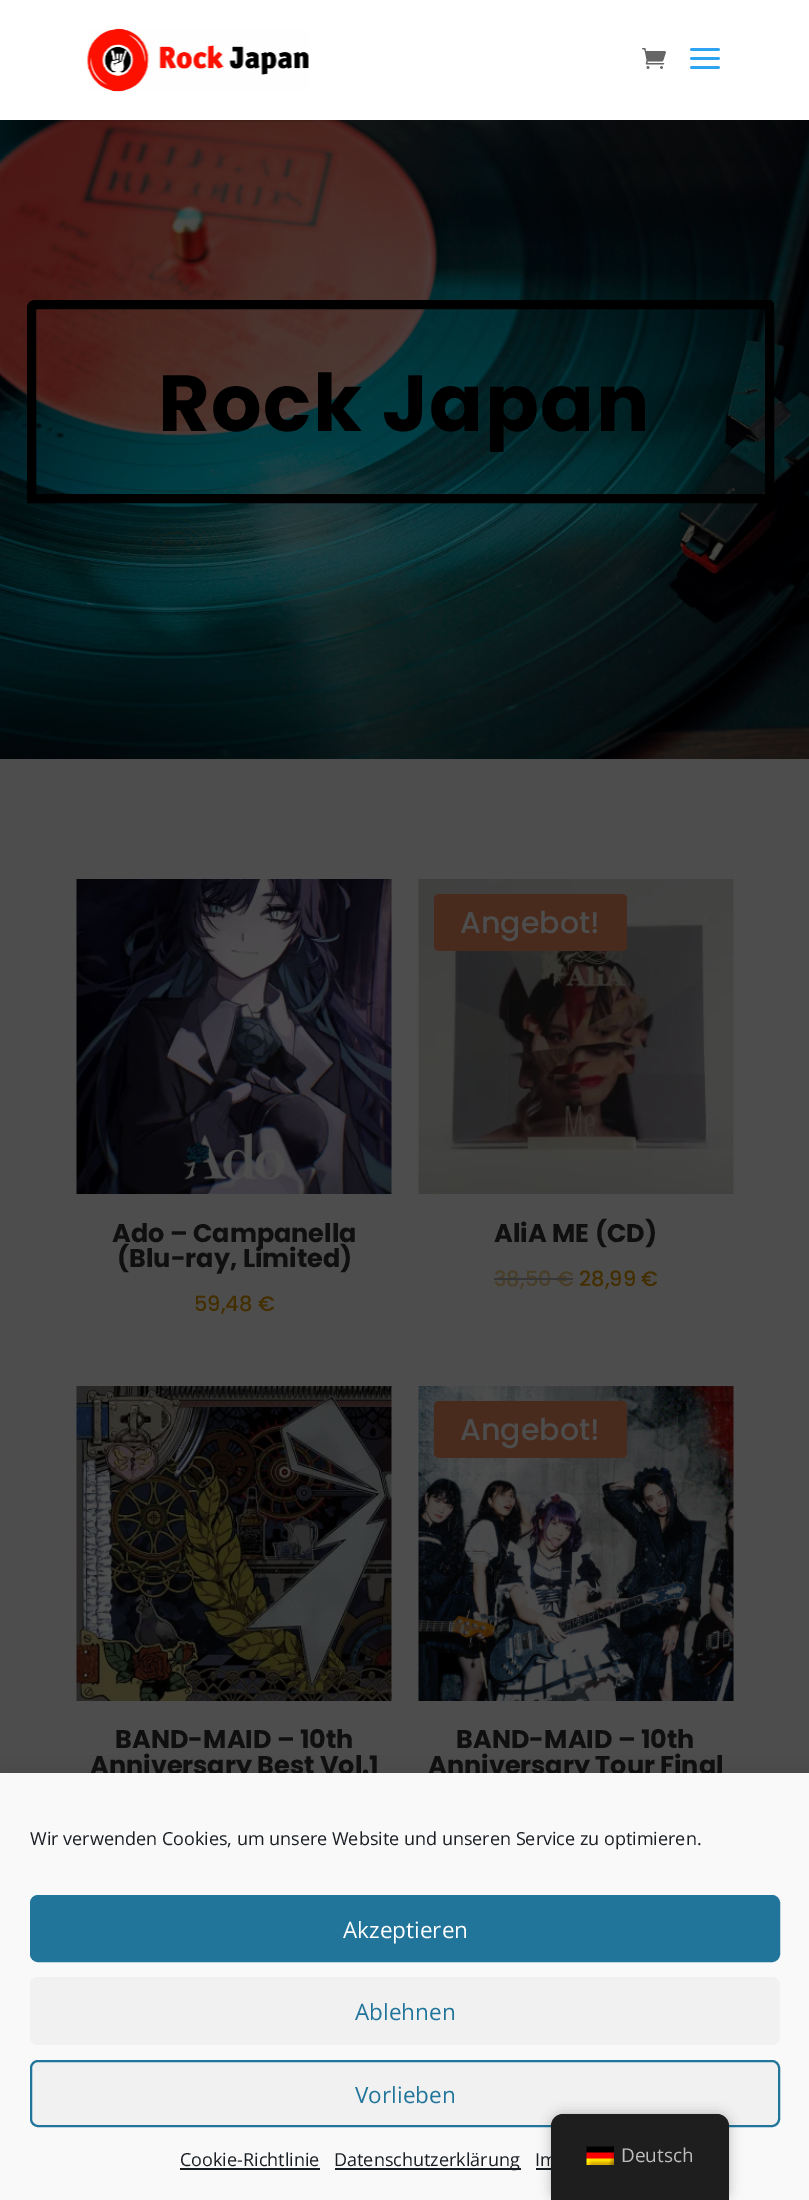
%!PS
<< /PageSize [809 2200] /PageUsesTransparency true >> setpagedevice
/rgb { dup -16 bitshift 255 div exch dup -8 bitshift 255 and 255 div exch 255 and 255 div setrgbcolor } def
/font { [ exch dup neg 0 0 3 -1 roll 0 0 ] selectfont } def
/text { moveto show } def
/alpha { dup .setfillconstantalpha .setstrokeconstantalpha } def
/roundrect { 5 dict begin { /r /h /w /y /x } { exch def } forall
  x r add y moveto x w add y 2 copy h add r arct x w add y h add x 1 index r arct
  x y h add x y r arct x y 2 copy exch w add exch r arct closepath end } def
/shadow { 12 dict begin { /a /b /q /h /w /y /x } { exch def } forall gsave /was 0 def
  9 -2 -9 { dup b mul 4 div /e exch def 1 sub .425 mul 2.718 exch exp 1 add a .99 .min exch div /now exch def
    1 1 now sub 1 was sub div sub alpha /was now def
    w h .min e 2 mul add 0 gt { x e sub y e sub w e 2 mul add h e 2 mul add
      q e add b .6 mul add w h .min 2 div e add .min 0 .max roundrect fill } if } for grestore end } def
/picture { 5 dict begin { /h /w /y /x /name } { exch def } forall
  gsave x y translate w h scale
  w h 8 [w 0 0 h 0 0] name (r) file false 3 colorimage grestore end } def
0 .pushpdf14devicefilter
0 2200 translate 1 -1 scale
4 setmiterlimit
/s1 { /Poppins-Bold 25.5 font 16#0F0F0F rgb } def
/s2 { /Poppins-Medium 21 font 16#432E00 rgb } def
/s3 { /Poppins-Medium 30 font 16#4D4D4D rgb } def
/s4 { /Poppins-Medium 21 font 16#483D26 rgb } def
/s5 { /OpenSans-Regular 18 font 16#191E23 rgb } def
/s6 { /OpenSans-Regular 22.5 font 16#FFFFFF rgb } def
/s7 { /OpenSans-Regular 22.5 font 16#21759B rgb } def
/s8 { /OpenSans-Regular 19 font 16#BDBDBD rgb } def
16#4D4D4D rgb
0 0 809 2200 rectfill
(pic4.raw) 0 120 809 639 picture
0.1 alpha
16#000000 rgb
58 120 286 2 rectfill
1 alpha
16#FFFFFF rgb
0 0 809 120 rectfill
(pic1.raw) 87 28 222 64 picture
(pic2.raw) 642 48 24 21 picture
(pic3.raw) 690 48 30 21 picture
16#000000 rgb
9 setlinewidth
35 304.5 moveto 769 304.5 lineto 769.5 304.5 769.5 304.5 769.5 305 curveto 769.5 498.5 lineto 31.5 498.5 lineto 31.5 308 lineto 31.5 306 33 304.5 35 304.5 curveto closepath stroke
/Poppins-Bold 79.5 font
158 431 moveto 1.5 0 (Rock Japan) ashow
(pic5.raw) 76 879 316 315 picture
s1
(Ado – Campanella) 112 1242 text
(\(Blu-ray, Limited\)) 117 1267 text
s2
(59,48 €) 194 1311 text
(pic6.raw) 418 879 316 315 picture
16#482B1D rgb
434 894 193 57 5 roundrect fill
s3
(Angebot!) 460 933 text
s1
(AliA ME \(CD\)) 494 1242 text
s4
(38,50 €) 494 1286 text
16#363636 rgb
494 1278 79 2 rectfill
s2
(28,99 €) 579 1286 text
(pic7.raw) 76 1386 316 315 picture
s1
(BAND-MAID – 10th) 115 1748 text
(Anniversary Best Vol.1) 90 1774 text
(pic8.raw) 418 1386 316 315 picture
16#482B1D rgb
434 1401 193 57 5 roundrect fill
s3
(Angebot!) 460 1440 text
s1
(BAND-MAID – 10th) 456 1748 text
(Anniversary Tour Final) 428 1774 text
16#000000 rgb
0 1788 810 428 0 15 0.19 shadow
16#F9F9F9 rgb
0 1773 809 427 rectfill
s5
(Wir verwenden Cookies, um unsere Website und unseren Service zu optimieren.) 30 1845 text
16#21759B rgb
31 1896 748 65 7 roundrect gsave fill grestore
2 setlinewidth
stroke
s6
(Akzeptieren) 343 1938 text
16#F1F1F1 rgb
30 1977 750 68 8 roundrect fill
s7
(Ablehnen) 355 2020 text
16#F1F1F1 rgb
31 2061 748 65 7 roundrect gsave fill grestore
16#21759B rgb
stroke
(Vorlieben) 355 2103 text
s5
(Cookie-Richtlinie) 180 2166 text
180 2168 140 2 rectfill
335 2168 186 2 rectfill
(Datenschutzerklärung) 334 2166 text
(Im) 535 2166 text
536 2168 15 2 rectfill
16#000000 rgb
551 2114 178 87 12 6 0.25 shadow
16#1E1E1E rgb
563 2114 moveto 717 2114 lineto 723.5 2114 729 2119.5 729 2126 curveto 729 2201 lineto 551 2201 lineto 551 2126 lineto 551 2119.5 556.5 2114 563 2114 curveto closepath fill
(pic9.raw) 586 2146 28 19 picture
s8
(Deutsch) 621 2162 text
.poppdf14devicefilter showpage
